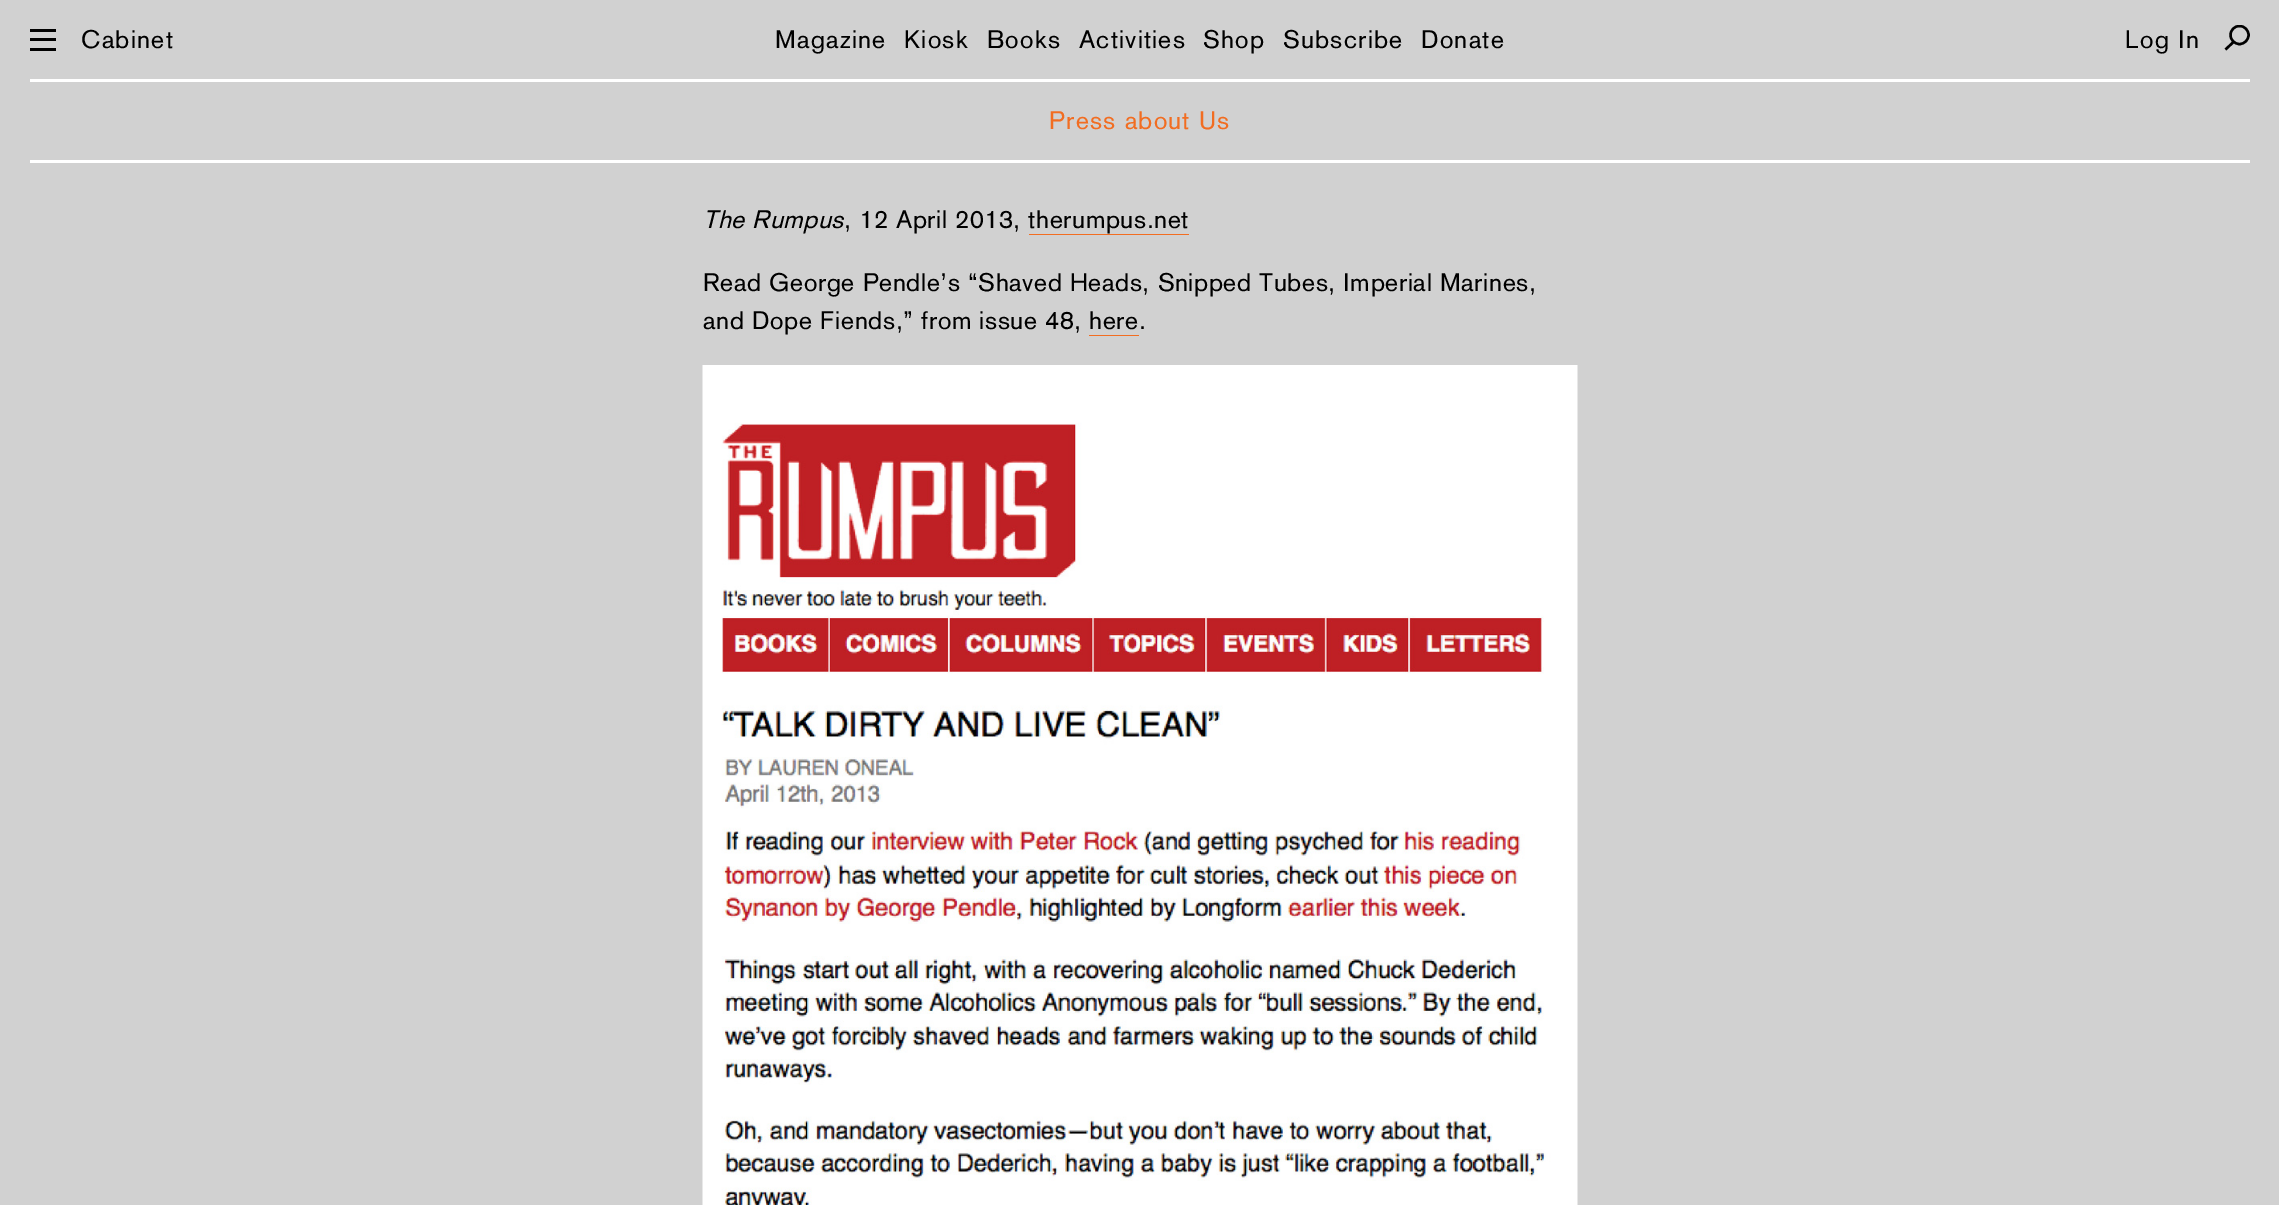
%!PS
<< /PageSize [2279 1205] >> setpagedevice
/rgb { dup -16 bitshift 255 div exch dup -8 bitshift 255 and 255 div exch 255 and 255 div setrgbcolor } def
/font { [ exch dup neg 0 0 3 -1 roll 0 0 ] selectfont } def
/circle { newpath 0 360 arc closepath } def
/picture { 5 dict begin { /h /w /y /x /name } { exch def } forall
  gsave x y translate w h scale
  w h 8 [w 0 0 h 0 0] name (r) file false 3 colorimage grestore end } def
0 1205 translate 1 -1 scale
4 setmiterlimit
16#D1D1D1 rgb
0 0 2279 1205 rectfill
16#FFFFFF rgb
30 79 2220 3 rectfill
16#000000 rgb
30 29 26 3 rectfill
30 38 26 3 rectfill
30 48 26 3 rectfill
/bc-Regular 25 font
81 48 moveto 1.25 0 (Cabinet) ashow
775 48 moveto 1.25 0 (Magazine) ashow
904 48 moveto 1.25 0 (Kiosk) ashow
987 48 moveto 1.25 0 (Books) ashow
1079 48 moveto 1.25 0 (Activities) ashow
1203 48 moveto 1.25 0 (Shop) ashow
1283 48 moveto 1.25 0 (Subscribe) ashow
1421 48 moveto 1.25 0 (Donate) ashow
2125 48 moveto 1.25 0 (Log In) ashow
gsave
2224 25 26 26 rectclip
2.4 setlinewidth
2239.5 35 9 circle stroke
grestore
2.4 setlinewidth
2233.5 42 moveto 2225.5 49.5 lineto stroke
16#FFFFFF rgb
30 160 2220 3 rectfill
16#F26D21 rgb
1049 129 moveto 1.25 0 (Press about Us) ashow
/bc-Italic 25 font
16#000000 rgb
703 228 moveto 0.62 0 (The Rumpus) ashow
/bc-Regular 25 font
844 228 moveto 0.62 0 (, 12 April 2013, therumpus.net) ashow
16#F26D21 rgb
1029 234 160 1 rectfill
16#000000 rgb
703 291 moveto 0.62 0 (Read George Pendle’s “Shaved Heads, Snipped Tubes, Imperial Marines,) ashow
703 329 moveto 0.62 0 (and Dope Fiends,” from issue 48, here.) ashow
16#F26D21 rgb
1089 335 50 1 rectfill
(pic1.raw) 702 365 876 840 picture
showpage
